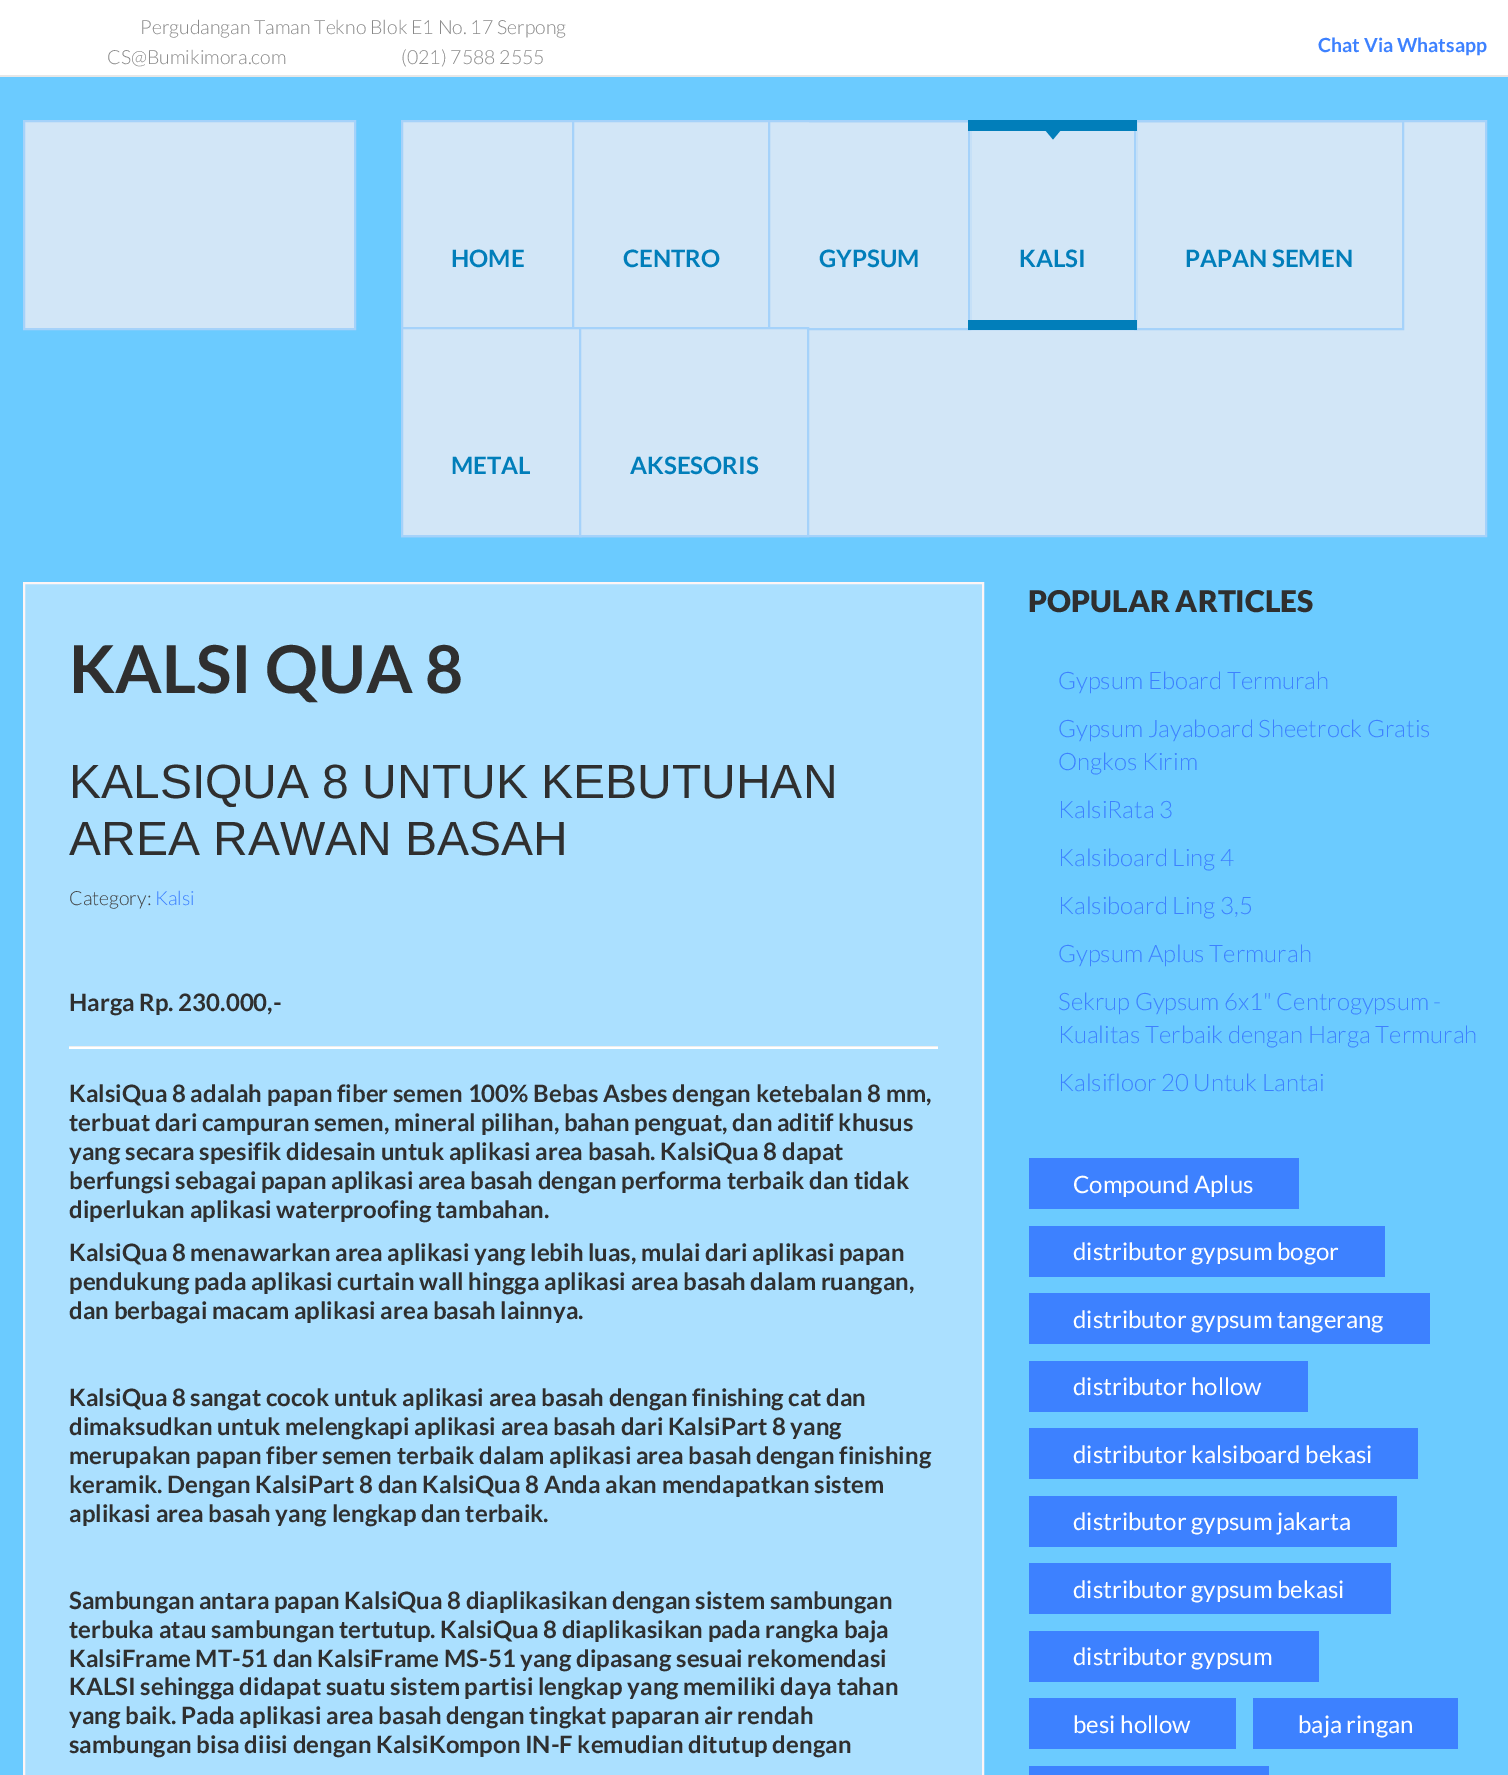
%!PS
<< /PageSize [1508 1775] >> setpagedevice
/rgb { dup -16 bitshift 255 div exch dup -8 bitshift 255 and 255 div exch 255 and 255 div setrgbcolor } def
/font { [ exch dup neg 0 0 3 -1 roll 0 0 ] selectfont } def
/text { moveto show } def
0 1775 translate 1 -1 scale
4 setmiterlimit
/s1 { /Lato-Light 19.5 font 16#898989 rgb } def
/s2 { /Lato-Bold 19.5 font 16#3D81FF rgb } def
/s3 { /Lato-Bold 24 font 16#017EBA rgb } def
/s4 { /Lato-Bold 66 font 16#2F2F2F rgb } def
/s5 { /LiberationSans-Regular 48 font 16#2F2F2F rgb } def
/s6 { /Lato-Light 19.5 font 16#404040 rgb } def
/s7 { /Lato-Light 19.5 font 16#3D81FF rgb } def
/s8 { /Lato-Bold 24 font 16#2F2F2F rgb } def
/s9 { /Lato-Black 30 font 16#2F2F2F rgb } def
/s10 { /Lato-Light 24 font 16#3D81FF rgb } def
/s11 { /Lato-Regular 24 font 16#FFFFFF rgb } def
16#6BCBFF rgb
0 0 1508 1775 rectfill
16#FFFFFF rgb
0 0 1508 75 rectfill
16#E7E7E7 rgb
0 75 1508 2 rectfill
s1
(Pergudangan Taman Tekno Blok E1 No. 17 Serpong) 140 34 text
(CS@Bumikimora.com) 107 64 text
(\(021\) 7588 2555) 401 64 text
s2
(Chat Via Whatsapp) 1318 52 text
16#D2E6F7 rgb
24 121 moveto 355 121 lineto 355 329 lineto 24 329 lineto closepath gsave fill grestore
16#A5D2FA rgb
2 setlinewidth
stroke
16#D2E6F7 rgb
809 122 676 413 rectfill
16#A5D2FA rgb
402 121 1084 415 rectstroke
16#D2E6F7 rgb
403 122 169 205 rectfill
16#A5D2FA rgb
402 121 172 208 rectstroke
s3
(HOME) 451 267 text
16#D2E6F7 rgb
574 122 194 205 rectfill
16#A5D2FA rgb
573 121 197 208 rectstroke
s3
(CENTRO) 623 267 text
16#D2E6F7 rgb
770 122 39 206 rectfill
16#A5D2FA rgb
769 121 201 208 rectstroke
s3
(GYPSUM) 819 267 text
16#D2E6F7 rgb
970 131 1 189 rectfill
16#A5D2FA rgb
969 121 167 208 rectstroke
16#017EBA rgb
1045.5 130.5 moveto 1060.5 130.5 lineto 1053 139.5 lineto closepath fill
16#D2E6F7 rgb
1136 122 1 206 rectfill
16#A5D2FA rgb
1135 121 268 208 rectstroke
16#017EBA rgb
968 120 169 11 rectfill
968 320 169 10 rectfill
(KALSI) 1019 267 text
(PAPAN SEMEN) 1185 267 text
16#D2E6F7 rgb
403 329 176 206 rectfill
16#A5D2FA rgb
402 328 179 208 rectstroke
s3
(METAL) 451 474 text
16#D2E6F7 rgb
580 328 moveto 808 328 lineto 808 536 lineto 580 536 lineto closepath gsave fill grestore
16#A5D2FA rgb
stroke
s3
(AKSESORIS) 630 474 text
16#ABE0FF rgb
24 583 moveto 983 583 lineto 983 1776 lineto 24 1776 lineto closepath gsave fill grestore
16#FFF5F5 rgb
stroke
s4
(KALSI QUA 8) 69 693 text
s5
(KALSIQUA 8 UNTUK KEBUTUHAN) 69 798 text
(AREA RAWAN BASAH) 69 855 text
s6
(Category:) 69 905 text
s7
(Kalsi) 155 905 text
s8
(Harga Rp. 230.000,-) 69 1011 text
16#EEEEEE rgb
69 1046 869 1 rectfill
16#FFFFFF rgb
69 1047 869 2 rectfill
s8
(KalsiQua 8 adalah papan fiber semen 100% Bebas Asbes dengan ketebalan 8 mm,) 69 1102 text
(terbuat dari campuran semen, mineral pilihan, bahan penguat, dan aditif khusus) 69 1131 text
(yang secara spesifik didesain untuk aplikasi area basah. KalsiQua 8 dapat) 69 1160 text
(berfungsi sebagai papan aplikasi area basah dengan performa terbaik dan tidak) 69 1189 text
(diperlukan aplikasi waterproofing tambahan.) 69 1218 text
(KalsiQua 8 menawarkan area aplikasi yang lebih luas, mulai dari aplikasi papan) 69 1261 text
(pendukung pada aplikasi curtain wall hingga aplikasi area basah dalam ruangan,) 69 1290 text
(dan berbagai macam aplikasi area basah lainnya.) 69 1319 text
(KalsiQua 8 sangat cocok untuk aplikasi area basah dengan finishing cat dan) 69 1406 text
(dimaksudkan untuk melengkapi aplikasi area basah dari KalsiPart 8 yang) 69 1435 text
(merupakan papan fiber semen terbaik dalam aplikasi area basah dengan finishing) 69 1464 text
(keramik. Dengan KalsiPart 8 dan KalsiQua 8 Anda akan mendapatkan sistem) 69 1493 text
(aplikasi area basah yang lengkap dan terbaik.) 69 1522 text
(Sambungan antara papan KalsiQua 8 diaplikasikan dengan sistem sambungan) 69 1609 text
(terbuka atau sambungan tertutup. KalsiQua 8 diaplikasikan pada rangka baja) 69 1638 text
(KalsiFrame MT-51 dan KalsiFrame MS-51 yang dipasang sesuai rekomendasi) 69 1667 text
(KALSI sehingga didapat suatu sistem partisi lengkap yang memiliki daya tahan) 69 1695 text
(yang baik. Pada aplikasi area basah dengan tingkat paparan air rendah) 69 1724 text
(sambungan bisa diisi dengan KalsiKompon IN-F kemudian ditutup dengan) 69 1753 text
s9
(POPULAR ARTICLES) 1028 612 text
s10
(Gypsum Eboard Termurah) 1058 689 text
(Gypsum Jayaboard Sheetrock Gratis) 1058 737 text
(Ongkos Kirim) 1058 770 text
(KalsiRata 3) 1058 818 text
(Kalsiboard Ling 4) 1058 866 text
(Kalsiboard Ling 3,5) 1058 914 text
(Gypsum Aplus Termurah) 1058 962 text
(Sekrup Gypsum 6x1" Centrogypsum -) 1058 1010 text
(Kualitas Terbaik dengan Harga Termurah) 1058 1043 text
(Kalsifloor 20 Untuk Lantai) 1058 1091 text
1029 1158 270 51 rectfill
s11
(Compound Aplus) 1073 1193 text
16#3D81FF rgb
1029 1226 356 51 rectfill
s11
(distributor gypsum bogor) 1073 1260 text
16#3D81FF rgb
1029 1293 401 51 rectfill
s11
(distributor gypsum tangerang) 1073 1328 text
16#3D81FF rgb
1029 1361 279 51 rectfill
s11
(distributor hollow) 1073 1395 text
16#3D81FF rgb
1029 1428 389 51 rectfill
s11
(distributor kalsiboard bekasi) 1073 1463 text
16#3D81FF rgb
1029 1496 368 51 rectfill
s11
(distributor gypsum jakarta) 1073 1530 text
16#3D81FF rgb
1029 1563 362 51 rectfill
s11
(distributor gypsum bekasi) 1073 1598 text
16#3D81FF rgb
1029 1631 290 51 rectfill
s11
(distributor gypsum) 1073 1665 text
16#3D81FF rgb
1029 1698 207 51 rectfill
s11
(besi hollow) 1073 1733 text
16#3D81FF rgb
1253 1698 205 51 rectfill
s11
(baja ringan) 1298 1733 text
16#3D81FF rgb
1029 1766 240 9 rectfill
showpage
